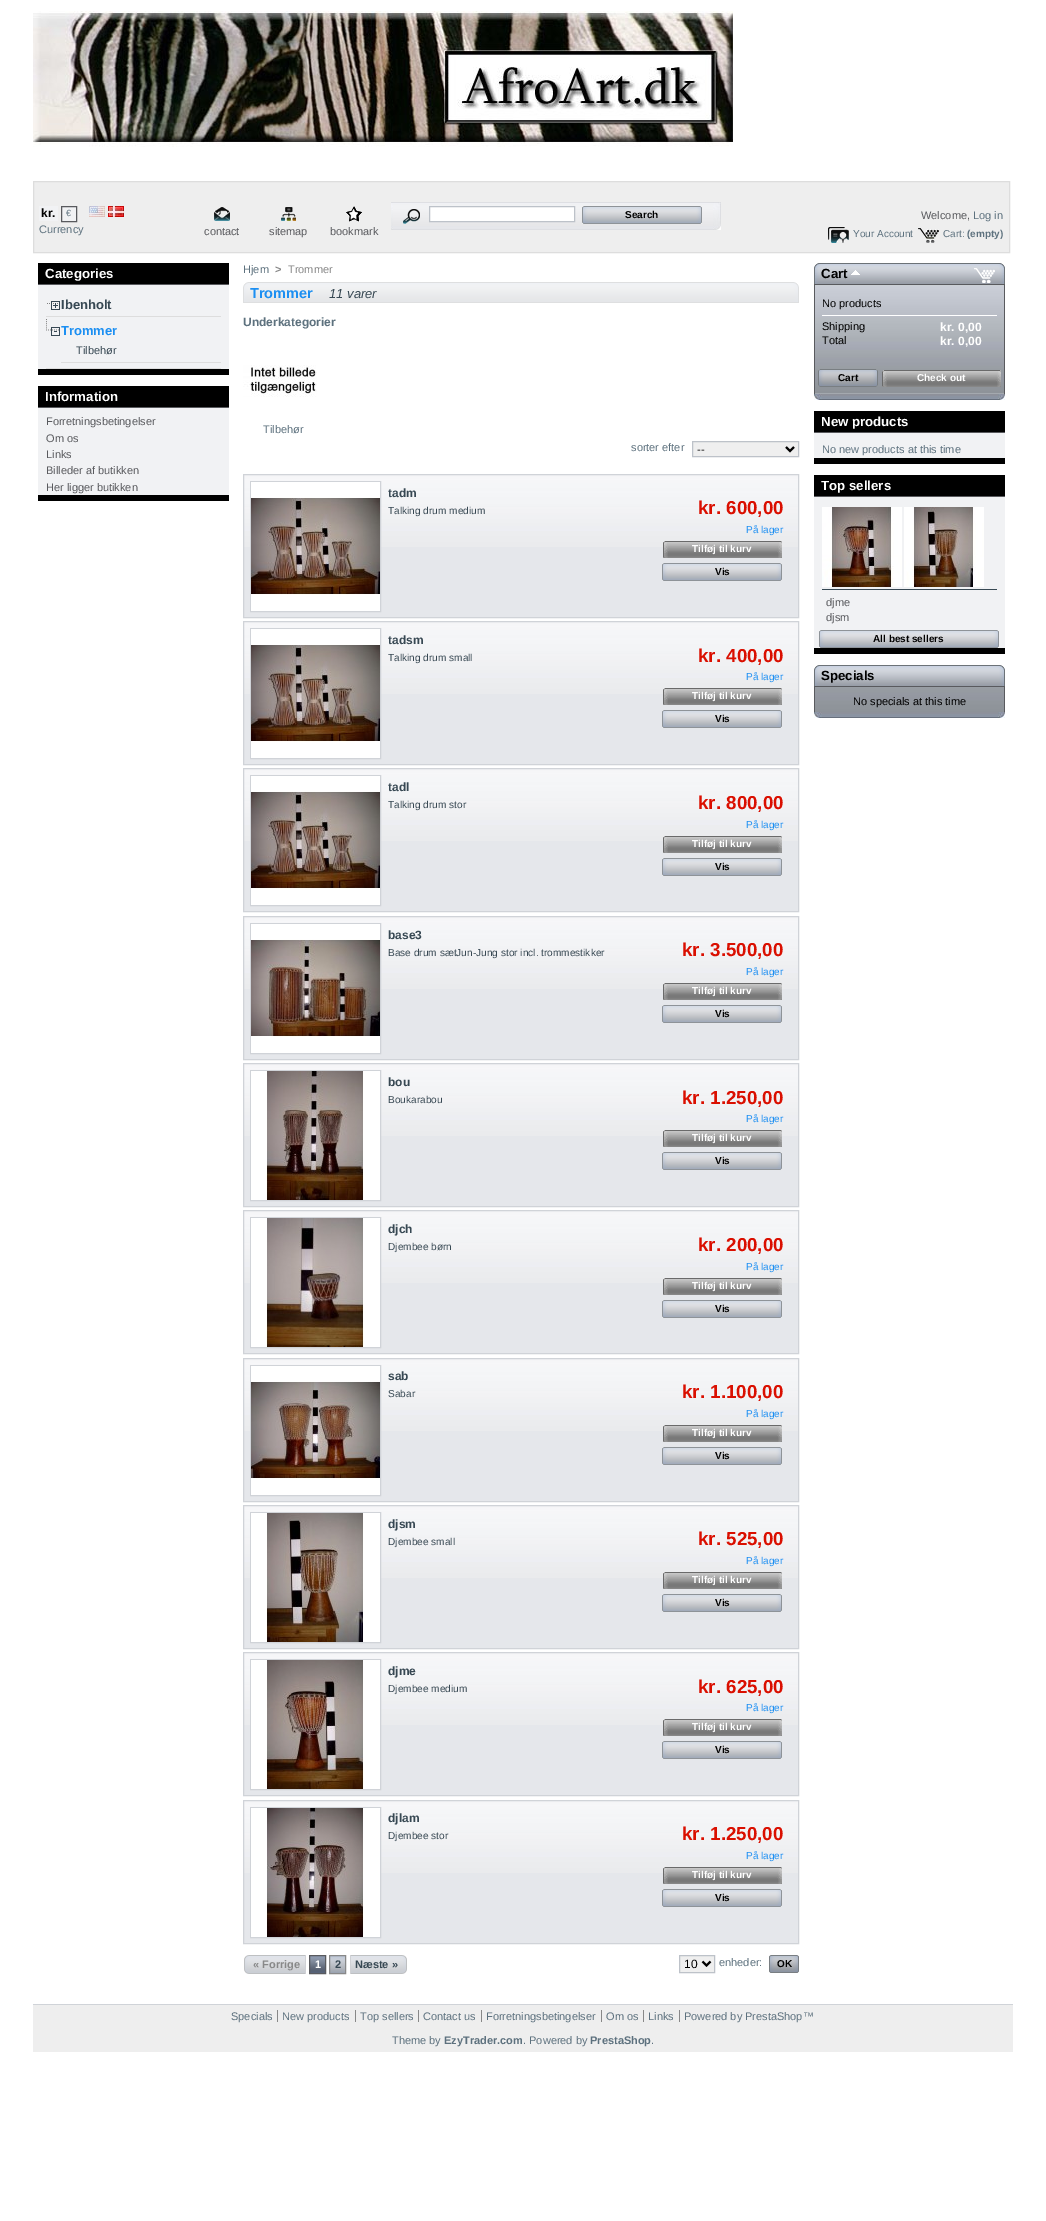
%!PS
<< /PageSize [1046 2221] >> setpagedevice
/rgb { dup -16 bitshift 255 div exch dup -8 bitshift 255 and 255 div exch 255 and 255 div setrgbcolor } def
/font { [ exch dup neg 0 0 3 -1 roll 0 0 ] selectfont } def
/text { moveto show } def
/picture { 5 dict begin { /h /w /y /x /name } { exch def } forall
  gsave x y translate w h scale
  w h 8 [w 0 0 h 0 0] name (r) file false 3 colorimage grestore end } def
0 2221 translate 1 -1 scale
4 setmiterlimit
/s1 { /LiberationSans-Bold 12 font 16#000000 rgb } def
/s2 { /LiberationSans-Regular 9 font 16#5D717E rgb } def
/s3 { /LiberationSans-Regular 11 font 16#5D717E rgb } def
/s4 { /LiberationSans-Regular 11 font 16#595A5E rgb } def
/s5 { /LiberationSans-Bold 10 font 16#000000 rgb } def
/s6 { /LiberationSans-Regular 10 font 16#5D717E rgb } def
/s7 { /LiberationSans-Bold 10 font 16#5D717E rgb } def
/s8 { /LiberationSans-Bold 13.25 font 16#FFFFFF rgb } def
/s9 { /LiberationSans-Bold 13 font 16#374853 rgb } def
/s10 { /LiberationSans-Bold 13 font 16#1C8FF2 rgb } def
/s11 { /LiberationSans-Regular 11 font 16#374853 rgb } def
/s12 { /LiberationSans-Bold 11 font 16#888888 rgb } def
/s13 { /LiberationSans-Regular 11 font 16#888888 rgb } def
/s14 { /LiberationSans-Bold 14.5 font 16#1C8FF2 rgb } def
/s15 { /LiberationSans-Italic 13 font 16#374853 rgb } def
/s16 { /LiberationSans-Bold 12 font 16#5D717E rgb } def
/s17 { /LiberationSans-Regular 11 font 16#000000 rgb } def
/s18 { /LiberationSans-Bold 12 font 16#374853 rgb } def
/s19 { /LiberationSans-Regular 10.1 font 16#374853 rgb } def
/s20 { /LiberationSans-Bold 18.75 font 16#DA0F00 rgb } def
/s21 { /LiberationSans-Regular 10 font 16#1C8FF2 rgb } def
/s22 { /LiberationSans-Bold 10 font 16#FFFFFF rgb } def
/s23 { /LiberationSans-Bold 11 font 16#FFFFFF rgb } def
/s24 { /LiberationSans-Bold 11 font 16#374853 rgb } def
/s25 { /LiberationSans-Regular 12 font 16#000000 rgb } def
/s26 { /LiberationSans-Bold 13.25 font 16#000000 rgb } def
/s27 { /LiberationSans-Bold 12 font 16#FFFFFF rgb } def
/s28 { /LiberationSans-Bold 11 font 16#5D717E rgb } def
16#FFFFFF rgb
0 0 1046 2221 rectfill
(pic1.raw) 33 11 700 136 picture
16#EEEEEE rgb
33.5 181.5 moveto 1009.5 181.5 lineto 1009.5 252.5 lineto 33.5 252.5 lineto closepath gsave fill grestore
16#DDDDDD rgb
stroke
16#F1F2F4 rgb
39 206 19 15 rectfill
s1
(kr.) 41 217 text
16#F1F2F4 rgb
61.5 206.5 moveto 76.5 206.5 lineto 76.5 221.5 lineto 61.5 221.5 lineto closepath gsave fill grestore
16#595A5E rgb
stroke
s2
(€) 66 216 text
s3
(Currency) 39 233 text
(pic2.raw) 89 206 16 11 picture
(pic3.raw) 108 206 16 11 picture
(pic4.raw) 214 207 16 14 picture
s4
(contact) 204 235 text
(pic5.raw) 281 207 15 14 picture
(sitemap) 269 235 text
(pic6.raw) 346 206 16 16 picture
(bookmark) 330 235 text
(pic7.raw) 391 202 330 28 picture
(pic8.raw) 403 209 17 15 picture
16#FFFFFF rgb
429.5 206.5 moveto 574.5 206.5 lineto 574.5 221.5 lineto 429.5 221.5 lineto closepath gsave fill grestore
16#BDC2C9 rgb
stroke
16#EFEFEF rgb
582 206 120 18 rectfill
(pic9.raw) 582 206 120 18 picture
s5
(Search) 625 218 text
s4
(Welcome,) 921 219 text
s3
(Log in) 973 219 text
(pic10.raw) 828 227 21 16 picture
s6
(Your Account) 853 237 text
(pic11.raw) 918 228 21 15 picture
(Cart:) 943 237 text
s7
(\(empty\)) 967 237 text
16#000000 rgb
38 263 191 112 rectfill
16#595A5E rgb
38 284 191 1 rectfill
s8
(Categories) 45 278 text
16#F1F2F4 rgb
38 285 191 84 rectfill
(pic12.raw) 47 303 11 1 picture
16#DDDDDD rgb
46 316 175 1 rectfill
(pic13.raw) 51 301 9 9 picture
s9
(Ibenholt) 61 309 text
(pic14.raw) 46 319 13 12 picture
16#DDDDDD rgb
46 368 175 1 rectfill
(pic15.raw) 51 327 9 9 picture
s10
(Trommer) 61 335 text
16#DDDDDD rgb
61 362 160 1 rectfill
s11
(Tilbehør) 76 354 text
16#000000 rgb
38 386 191 115 rectfill
16#595A5E rgb
38 407 191 1 rectfill
s8
(Information) 45 401 text
16#F1F2F4 rgb
38 408 191 87 rectfill
s4
(Forretningsbetingelser) 46 425 text
(Om os) 46 442 text
(Links) 46 458 text
(Billeder af butikken) 46 474 text
(Her ligger butikken) 46 491 text
s3
(Hjem) 243 273 text
s12
(>) 275 273 text
s13
(Trommer) 288 273 text
(pic16.raw) 243 282 556 21 picture
s14
(Trommer) 250 298 text
s15
(11 varer) 329 298 text
s16
(Underkategorier) 243 326 text
(pic17.raw) 243 365 74 32 picture
s3
(Tilbehør) 263 433 text
(sorter efter) 631 451 text
16#EFEFEF rgb
692.5 441.5 moveto 798.5 441.5 lineto 798.5 456.5 lineto 692.5 456.5 lineto closepath gsave fill grestore
16#BDC2C9 rgb
stroke
16#000000 rgb
2 setlinewidth
786 447 moveto 790 451 lineto 794 447 lineto stroke
(--) 697 453 text
16#E5E7EB rgb
244 547 554 70 rectfill
(pic18.raw) 244 475 554 72 picture
16#D0D3D8 rgb
1 setlinewidth
243.5 474.5 555 143 rectstroke
250.5 481.5 130 130 rectstroke
(pic19.raw) 251 482 129 129 picture
s18
(tadm) 388 497 text
s19
(Talking drum medium) 388 514 text
s20
(kr. 600,00) 698 514 text
s21
(På lager) 746 533 text
(pic20.raw) 663 541 119 17 picture
s22
(Tilføj til kurv) 692 552 text
(pic21.raw) 662 563 120 18 picture
s5
(Vis) 715 575 text
16#E5E7EB rgb
244 694 554 70 rectfill
(pic18.raw) 244 622 554 72 picture
16#D0D3D8 rgb
243.5 621.5 555 143 rectstroke
250.5 628.5 130 130 rectstroke
(pic19.raw) 251 629 129 129 picture
s18
(tadsm) 388 644 text
s19
(Talking drum small) 388 661 text
s20
(kr. 400,00) 698 662 text
s21
(På lager) 746 680 text
(pic20.raw) 663 688 119 17 picture
s22
(Tilføj til kurv) 692 699 text
(pic21.raw) 662 710 120 18 picture
s5
(Vis) 715 722 text
16#E5E7EB rgb
244 841 554 70 rectfill
(pic18.raw) 244 769 554 72 picture
16#D0D3D8 rgb
243.5 768.5 555 143 rectstroke
250.5 775.5 130 130 rectstroke
(pic19.raw) 251 776 129 129 picture
s18
(tadl) 388 791 text
s19
(Talking drum stor) 388 808 text
s20
(kr. 800,00) 698 809 text
s21
(På lager) 746 828 text
(pic22.raw) 663 836 119 17 picture
s22
(Tilføj til kurv) 692 847 text
(pic21.raw) 662 858 120 18 picture
s5
(Vis) 715 870 text
16#E5E7EB rgb
244 989 554 70 rectfill
(pic18.raw) 244 917 554 72 picture
16#D0D3D8 rgb
243.5 916.5 555 143 rectstroke
250.5 923.5 130 130 rectstroke
(pic23.raw) 251 924 129 129 picture
s18
(base3) 388 939 text
s19
(Base drum sætJun-Jung stor incl. trommestikker) 388 956 text
s20
(kr. 3.500,00) 682 956 text
s21
(På lager) 746 975 text
(pic20.raw) 663 983 119 17 picture
s22
(Tilføj til kurv) 692 994 text
(pic21.raw) 662 1005 120 18 picture
s5
(Vis) 715 1017 text
16#E5E7EB rgb
244 1136 554 70 rectfill
(pic18.raw) 244 1064 554 72 picture
16#D0D3D8 rgb
243.5 1063.5 555 143 rectstroke
250.5 1070.5 130 130 rectstroke
(pic24.raw) 251 1071 129 129 picture
s18
(bou) 388 1086 text
s19
(Boukarabou) 388 1103 text
s20
(kr. 1.250,00) 682 1104 text
s21
(På lager) 746 1122 text
(pic20.raw) 663 1130 119 17 picture
s22
(Tilføj til kurv) 692 1141 text
(pic21.raw) 662 1152 120 18 picture
s5
(Vis) 715 1164 text
16#E5E7EB rgb
244 1283 554 70 rectfill
(pic18.raw) 244 1211 554 72 picture
16#D0D3D8 rgb
243.5 1210.5 555 143 rectstroke
250.5 1217.5 130 130 rectstroke
(pic25.raw) 251 1218 129 129 picture
s18
(djch) 388 1233 text
s19
(Djembee børn) 388 1250 text
s20
(kr. 200,00) 698 1251 text
s21
(På lager) 746 1270 text
(pic22.raw) 663 1278 119 17 picture
s22
(Tilføj til kurv) 692 1289 text
(pic21.raw) 662 1300 120 18 picture
s5
(Vis) 715 1312 text
16#E5E7EB rgb
244 1431 554 70 rectfill
(pic18.raw) 244 1359 554 72 picture
16#D0D3D8 rgb
243.5 1358.5 555 143 rectstroke
250.5 1365.5 130 130 rectstroke
(pic26.raw) 251 1366 129 129 picture
s18
(sab) 388 1380 text
s19
(Sabar) 388 1397 text
s20
(kr. 1.100,00) 682 1398 text
s21
(På lager) 746 1417 text
(pic20.raw) 663 1425 119 17 picture
s22
(Tilføj til kurv) 692 1436 text
(pic21.raw) 662 1447 120 18 picture
s5
(Vis) 715 1459 text
16#E5E7EB rgb
244 1578 554 70 rectfill
(pic18.raw) 244 1506 554 72 picture
16#D0D3D8 rgb
243.5 1505.5 555 143 rectstroke
250.5 1512.5 130 130 rectstroke
(pic27.raw) 251 1513 129 129 picture
s18
(djsm) 388 1528 text
s19
(Djembee small) 388 1545 text
s20
(kr. 525,00) 698 1545 text
s21
(På lager) 746 1564 text
(pic20.raw) 663 1572 119 17 picture
s22
(Tilføj til kurv) 692 1583 text
(pic21.raw) 662 1594 120 18 picture
s5
(Vis) 715 1606 text
16#E5E7EB rgb
244 1725 554 70 rectfill
(pic18.raw) 244 1653 554 72 picture
16#D0D3D8 rgb
243.5 1652.5 555 143 rectstroke
250.5 1659.5 130 130 rectstroke
(pic28.raw) 251 1660 129 129 picture
s18
(djme) 388 1675 text
s19
(Djembee medium) 388 1692 text
s20
(kr. 625,00) 698 1693 text
s21
(På lager) 746 1711 text
(pic20.raw) 663 1719 119 17 picture
s22
(Tilføj til kurv) 692 1730 text
(pic21.raw) 662 1741 120 18 picture
s5
(Vis) 715 1753 text
16#E5E7EB rgb
244 1873 554 70 rectfill
(pic18.raw) 244 1801 554 72 picture
16#D0D3D8 rgb
243.5 1800.5 555 143 rectstroke
250.5 1807.5 130 130 rectstroke
(pic29.raw) 251 1808 129 129 picture
s18
(djlam) 388 1822 text
s19
(Djembee stor) 388 1839 text
s20
(kr. 1.250,00) 682 1840 text
s21
(På lager) 746 1859 text
(pic20.raw) 663 1867 119 17 picture
s22
(Tilføj til kurv) 692 1878 text
(pic21.raw) 662 1889 120 18 picture
s5
(Vis) 715 1901 text
(pic30.raw) 244 1955 5 19 picture
(pic31.raw) 249 1955 56 19 picture
16#D0D1D5 rgb
305 1955 1 19 rectfill
s12
(« Forrige) 253 1968 text
(pic32.raw) 310 1956 15 17 picture
16#595A5E rgb
309.5 1955.5 16 18 rectstroke
s23
(1) 315 1968 text
(pic33.raw) 330 1956 15 17 picture
16#888888 rgb
329.5 1955.5 16 18 rectstroke
s24
(2) 335 1968 text
(pic34.raw) 402 1955 5 19 picture
(pic35.raw) 351 1955 51 19 picture
16#D0D1D5 rgb
350 1955 1 19 rectfill
s24
(Næste ») 355 1968 text
16#EFEFEF rgb
679.5 1955.5 moveto 714.5 1955.5 lineto 714.5 1972.5 lineto 679.5 1972.5 lineto closepath gsave fill grestore
16#BDC2C9 rgb
stroke
16#000000 rgb
2 setlinewidth
702.5 1961.5 moveto 706.5 1965.5 lineto 710.5 1961.5 lineto stroke
s25
(10) 684 1968 text
s3
(enheder:) 719 1966 text
16#EFEFEF rgb
769 1955 30 18 rectfill
(pic36.raw) 769 1955 30 18 picture
s5
(OK) 777 1967 text
(pic37.raw) 814 394 191 6 picture
(pic38.raw) 814 263 191 21 picture
16#595A5E rgb
814 284 191 1 rectfill
s26
(Cart) 821 278 text
(pic39.raw) 851 270 9 5 picture
(pic40.raw) 815 285 189 109 picture
16#595A5E rgb
1004 285 1 109 rectfill
814 285 1 109 rectfill
s17
(No products) 822 307 text
16#FFFFFF rgb
822 315 175 1 rectfill
s17
(Shipping) 822 330 text
s27
(kr. 0,00) 940 331 text
s17
(Total) 822 344 text
s27
(kr. 0,00) 940 345 text
(pic41.raw) 818 369 60 18 picture
s5
(Cart) 838 381 text
(pic42.raw) 882 370 119 17 picture
s22
(Check out) 917 381 text
16#000000 rgb
814 411 191 53 rectfill
16#595A5E rgb
814 432 191 1 rectfill
s8
(New products) 821 426 text
16#F1F2F4 rgb
814 433 191 25 rectfill
s3
(No new products at this time) 822 453 text
16#000000 rgb
814 475 191 179 rectfill
16#595A5E rgb
814 496 191 1 rectfill
s8
(Top sellers) 821 490 text
16#F1F2F4 rgb
814 497 191 151 rectfill
(pic43.raw) 822 507 80 80 picture
(pic44.raw) 904 507 80 80 picture
16#374853 rgb
822 589 175 1 rectfill
s4
(djme) 826 606 text
(djsm) 826 621 text
(pic45.raw) 819 630 180 18 picture
s5
(All best sellers) 873 642 text
(pic37.raw) 814 712 191 6 picture
(pic46.raw) 814 665 191 21 picture
16#595A5E rgb
814 686 191 1 rectfill
s26
(Specials) 821 680 text
(pic47.raw) 815 687 189 25 picture
16#595A5E rgb
1004 687 1 25 rectfill
814 687 1 25 rectfill
s17
(No specials at this time) 853 705 text
16#EEEEEE rgb
33 2005 980 47 rectfill
16#D0D3D8 rgb
33 2004 980 1 rectfill
s3
(Specials) 231 2020 text
(New products) 282 2020 text
16#888888 rgb
277 2010 1 12 rectfill
s3
(Top sellers) 360 2020 text
16#888888 rgb
355 2010 1 12 rectfill
s3
(Contact us) 423 2020 text
16#888888 rgb
418 2010 1 12 rectfill
s3
(Forretningsbetingelser) 486 2020 text
16#888888 rgb
481 2010 1 12 rectfill
s3
(Om os) 606 2020 text
16#888888 rgb
601 2010 1 12 rectfill
s3
(Links) 648 2020 text
16#888888 rgb
643 2010 1 12 rectfill
s3
(Powered by PrestaShop™) 684 2020 text
16#888888 rgb
679 2010 1 12 rectfill
s3
(Theme by) 392 2044 text
s28
(EzyTrader.com) 444 2044 text
s3
(. Powered by) 523 2044 text
s28
(PrestaShop) 590 2044 text
s3
(.) 651 2044 text
showpage
